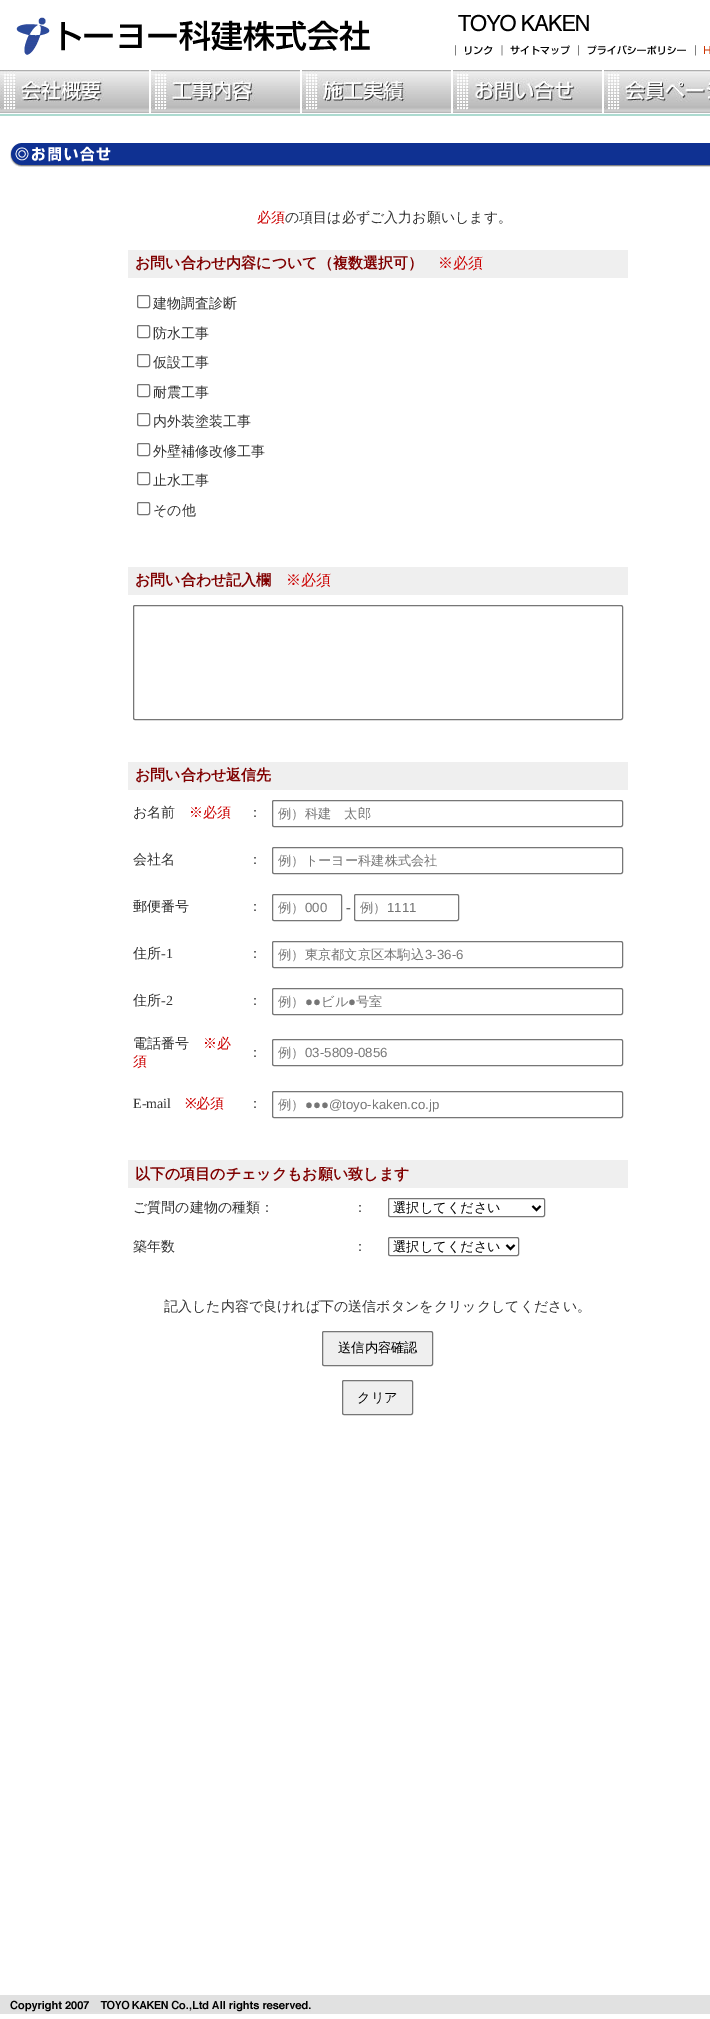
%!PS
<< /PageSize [710 2019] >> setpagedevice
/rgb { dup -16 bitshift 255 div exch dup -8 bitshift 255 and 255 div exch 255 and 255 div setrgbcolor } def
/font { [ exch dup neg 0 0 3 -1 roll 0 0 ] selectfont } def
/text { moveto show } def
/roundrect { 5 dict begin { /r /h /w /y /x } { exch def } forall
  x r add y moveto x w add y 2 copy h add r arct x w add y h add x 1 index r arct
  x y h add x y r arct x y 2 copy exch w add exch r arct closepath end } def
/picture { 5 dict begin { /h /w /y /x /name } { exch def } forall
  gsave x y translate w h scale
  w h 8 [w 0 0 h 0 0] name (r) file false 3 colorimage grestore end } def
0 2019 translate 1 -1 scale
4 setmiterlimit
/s1 { /WenQuanYiZenHei-Medium 14 font 16#CC0000 rgb } def
/s2 { /WenQuanYiZenHei-Medium 14 font 16#333333 rgb } def
/s3 { /WenQuanYiZenHei-Bold 15 font 16#800000 rgb } def
/s4 { /WenQuanYiZenHei-Medium 15 font 16#CC0000 rgb } def
/s5 { /WenQuanYiZenHei-Medium 13.25 font 16#757575 rgb } def
/s6 { /LiberationSans-Regular 13.25 font 16#757575 rgb } def
/s7 { /LiberationSerif-Regular 14 font 16#333333 rgb } def
/s8 { /NotoSans-Regular 14 font 16#CC0000 rgb } def
/s9 { /WenQuanYiZenHei-Medium 13.25 font 16#000000 rgb } def
16#FFFFFF rgb
0 0 710 2019 rectfill
(pic1.raw) 16 17 354 38 picture
(pic2.raw) 455 14 255 42 picture
(pic3.raw) 0 113 710 3 picture
(pic4.raw) 0 70 149 43 picture
(pic5.raw) 151 70 149 43 picture
(pic6.raw) 302 70 149 43 picture
(pic7.raw) 453 70 149 43 picture
(pic8.raw) 604 70 106 43 picture
(pic9.raw) 111 143 599 24 picture
(pic10.raw) 10 143 101 24 picture
s1
(必須) 257 222 text
s2
(の項⽬は必ずご⼊⼒お願いします。) 285 222 text
16#EFEFEF rgb
128 250 500 28 rectfill
s3
(お問い合わせ内容について（複数選択可）) 135 268 text
s4
(※必須) 438 268 text
16#767676 rgb
137.5 295.5 12 12 1.5 roundrect stroke
s2
(建物調査診断) 153 308 text
16#767676 rgb
137.5 325.5 12 12 1.5 roundrect stroke
s2
(防水工事) 153 338 text
16#767676 rgb
137.5 354.5 12 12 1.5 roundrect stroke
s2
(仮設工事) 153 367 text
16#767676 rgb
137.5 384.5 12 12 1.5 roundrect stroke
s2
(耐震工事) 153 397 text
16#767676 rgb
137.5 413.5 12 12 1.5 roundrect stroke
s2
(内外装塗装工事) 153 426 text
16#767676 rgb
137.5 443.5 12 12 1.5 roundrect stroke
s2
(外壁補修改修工事) 153 456 text
16#767676 rgb
137.5 472.5 12 12 1.5 roundrect stroke
s2
(止水工事) 153 485 text
16#767676 rgb
137.5 502.5 12 12 1.5 roundrect stroke
s2
(その他) 153 515 text
16#EFEFEF rgb
128 567 500 28 rectfill
s3
(お問い合わせ記入欄) 135 585 text
s4
(※必須) 286 585 text
16#767676 rgb
133.5 605.5 489 114 1.5 roundrect stroke
16#EFEFEF rgb
128 762 500 28 rectfill
s3
(お問い合わせ返信先) 135 780 text
s2
(お名前) 133 817 text
s1
(※必須) 189 817 text
s2
(：) 248 817 text
16#767676 rgb
272.5 800.5 350 26 1.5 roundrect stroke
s5
(例）科建　太郎) 278 818 text
s2
(会社名) 133 864 text
(：) 248 864 text
16#767676 rgb
272.5 847.5 350 26 1.5 roundrect stroke
s5
(例）トーヨー科建株式会社) 278 865 text
s2
(郵便番号) 133 911 text
(：) 248 911 text
16#767676 rgb
272.5 894.5 69 26 1.5 roundrect stroke
s5
(例）) 278 912 text
s6
(000) 305 912 text
s7
(-) 346 912 text
16#767676 rgb
354.5 894.5 104 26 1.5 roundrect stroke
s5
(例）) 360 912 text
s6
(1111) 387 912 text
s2
(住所) 133 958 text
s7
(-1) 161 958 text
s2
(：) 248 958 text
16#767676 rgb
272.5 941.5 350 26 1.5 roundrect stroke
s5
(例）東京都文京区本駒込) 278 959 text
s6
(3-36-6) 425 959 text
s2
(住所) 133 1005 text
s7
(-2) 161 1005 text
s2
(：) 248 1005 text
16#767676 rgb
272.5 988.5 350 26 1.5 roundrect stroke
s5
(例）) 278 1006 text
s6
(●●) 305 1006 text
s5
(ビル) 321 1006 text
s6
(●) 348 1006 text
s5
(号室) 356 1006 text
s2
(電話番号) 133 1048 text
s1
(※必) 203 1048 text
(須) 133 1066 text
s2
(：) 248 1057 text
16#767676 rgb
272.5 1039.5 350 26 1.5 roundrect stroke
s5
(例）) 278 1057 text
s6
(03-5809-0856) 305 1057 text
s7
(E-mail) 133 1108 text
s8
(※) 185 1108 text
s1
(必須) 196 1108 text
s2
(：) 248 1108 text
16#767676 rgb
272.5 1091.5 350 26 1.5 roundrect stroke
s5
(例）) 278 1109 text
s6
(●●●@toyo-kaken.co.jp) 305 1109 text
16#EFEFEF rgb
128 1160 500 28 rectfill
s3
(以下の項目のチェックもお願い致します) 135 1179 text
s2
(ご質問の建物の種類：) 133 1212 text
(：) 353 1212 text
16#767676 rgb
388.5 1198.5 156 18 1.5 roundrect stroke
16#000000 rgb
2 setlinewidth
532.5 1206 moveto 536.5 1210 lineto 540.5 1206 lineto stroke
s9
(選択してください) 393 1212 text
s2
(築年数) 133 1251 text
(：) 353 1251 text
16#767676 rgb
1 setlinewidth
388.5 1237.5 130 18 1.5 roundrect stroke
16#000000 rgb
2 setlinewidth
506.5 1245 moveto 510.5 1249 lineto 514.5 1245 lineto stroke
s9
(選択してください) 393 1251 text
s2
(記入した内容で良ければ下の送信ボタンをクリックしてください。) 164 1311 text
16#EFEFEF rgb
322.5 1331.5 110 34 1.5 roundrect gsave fill grestore
16#767676 rgb
1 setlinewidth
stroke
s9
(送信内容確認) 338 1352 text
16#EFEFEF rgb
342.5 1380.5 70 34 1.5 roundrect gsave fill grestore
16#767676 rgb
stroke
s9
(クリア) 357 1402 text
16#E1E1E1 rgb
0 1995 710 19 rectfill
(pic11.raw) 10 2000 301 12 picture
showpage
